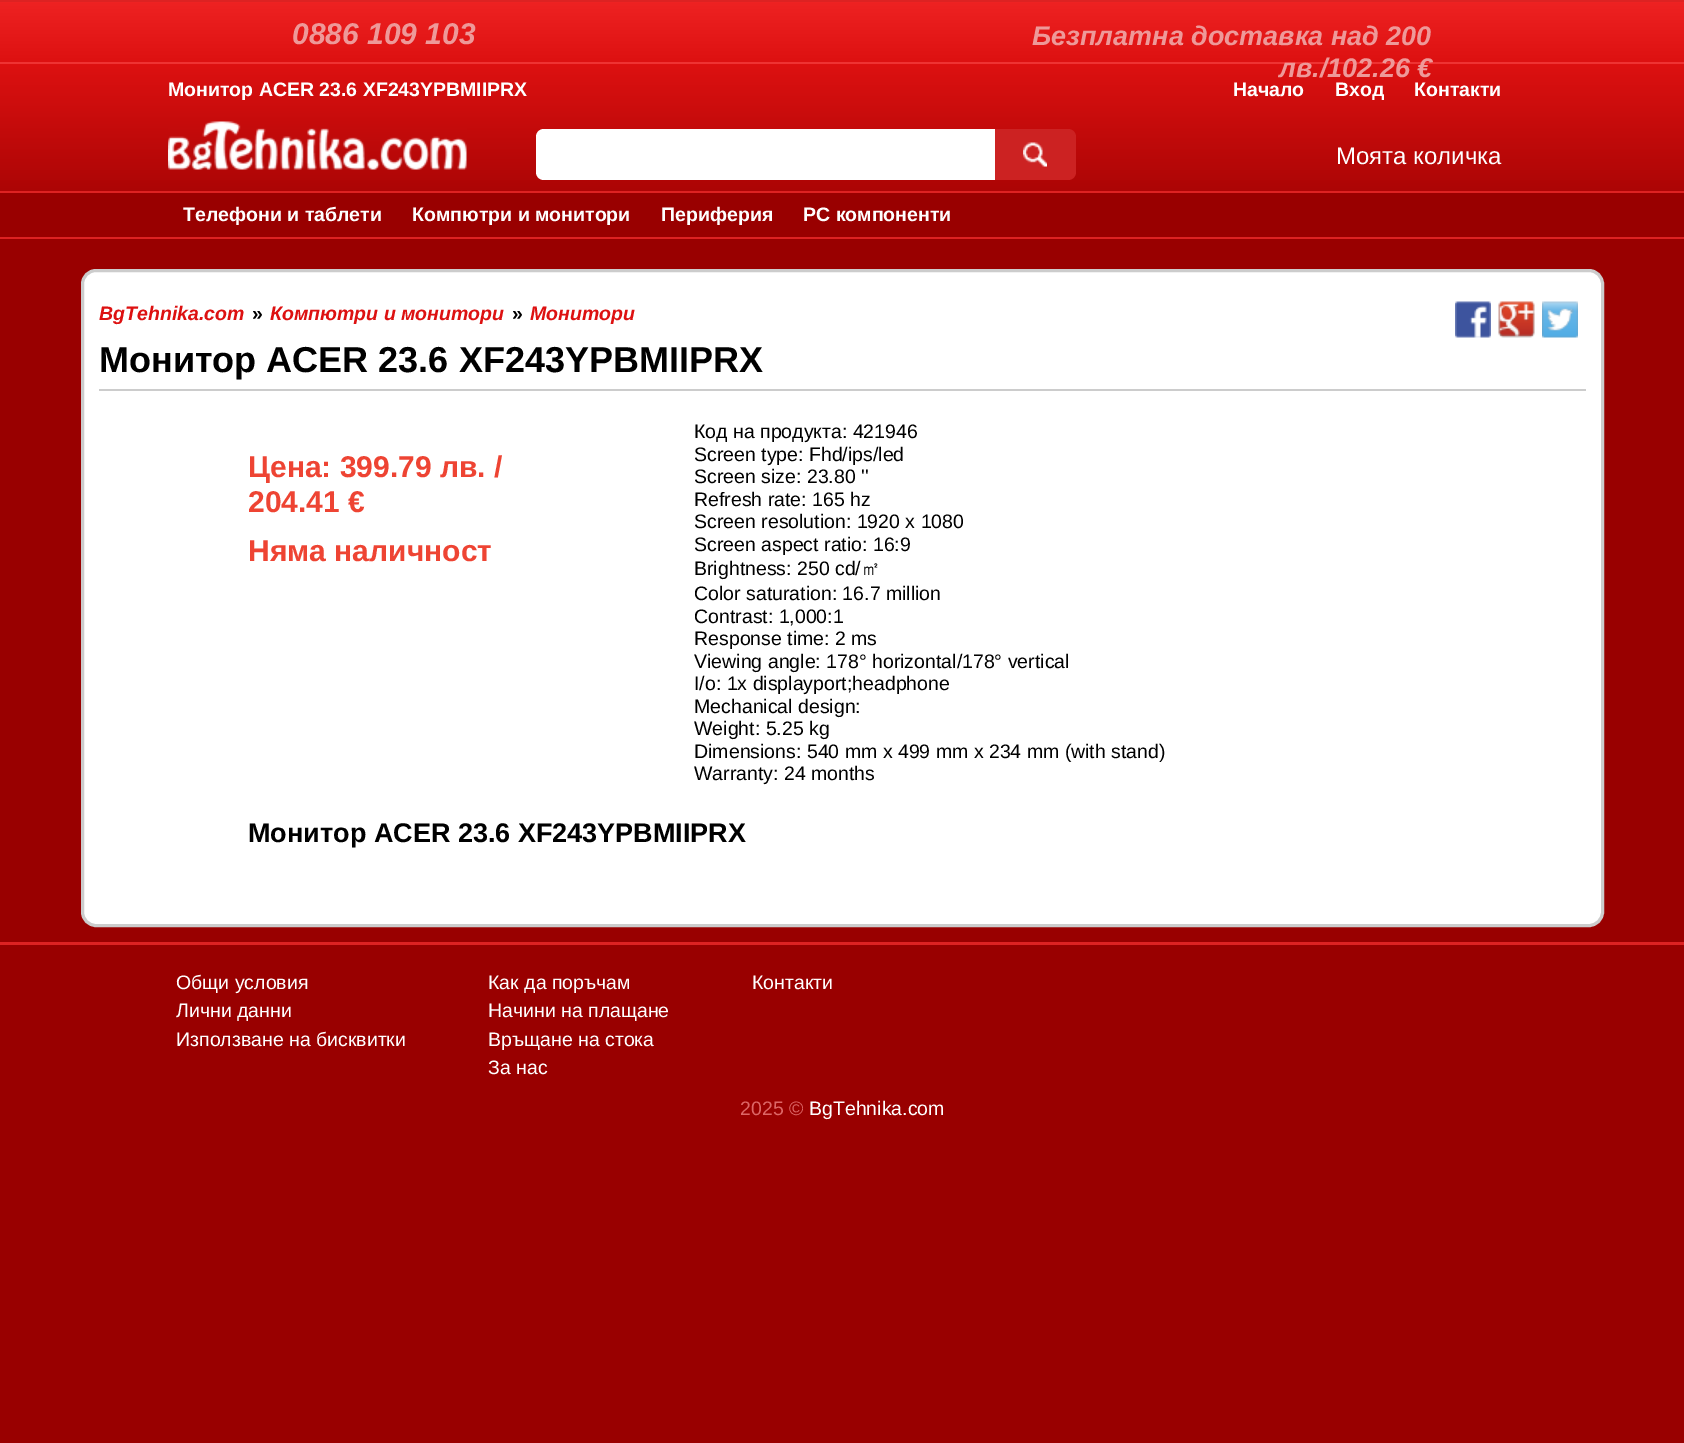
%!PS
<< /PageSize [1684 1443] >> setpagedevice
/rgb { dup -16 bitshift 255 div exch dup -8 bitshift 255 and 255 div exch 255 and 255 div setrgbcolor } def
/font { [ exch dup neg 0 0 3 -1 roll 0 0 ] selectfont } def
/text { moveto show } def
/roundrect { 5 dict begin { /r /h /w /y /x } { exch def } forall
  x r add y moveto x w add y 2 copy h add r arct x w add y h add x 1 index r arct
  x y h add x y r arct x y 2 copy exch w add exch r arct closepath end } def
/picture { 5 dict begin { /h /w /y /x /name } { exch def } forall
  gsave x y translate w h scale
  w h 8 [w 0 0 h 0 0] name (r) file false 3 colorimage grestore end } def
0 1443 translate 1 -1 scale
4 setmiterlimit
/s1 { /LiberationSans-BoldItalic 30 font 16#EE9999 rgb } def
/s2 { /LiberationSans-BoldItalic 27 font 16#EE9999 rgb } def
/s3 { /LiberationSans-BoldItalic 19.5 font 16#DD1111 rgb } def
/s4 { /LiberationSans-Bold 19.5 font 16#000000 rgb } def
/s5 { /LiberationSans-Bold 36 font 16#000000 rgb } def
/s6 { /LiberationSans-Bold 30 font 16#EE4433 rgb } def
/s7 { /LiberationSans-Regular 19.5 font 16#000000 rgb } def
/s8 { /WenQuanYiZenHei-Medium 19.5 font 16#000000 rgb } def
/s9 { /LiberationSans-Bold 27 font 16#000000 rgb } def
/s10 { /LiberationSans-Bold 19.5 font 16#FFFFFF rgb } def
/s11 { /LiberationSans-Regular 24 font 16#FFFFFF rgb } def
/s12 { /LiberationSans-Regular 19.5 font 16#FFFFFF rgb } def
/s13 { /LiberationSans-Regular 19.5 font 16#DD6666 rgb } def
16#990000 rgb
0 0 1684 1443 rectfill
gsave 0 2 moveto 1684 2 lineto 1684 62 lineto 0 62 lineto closepath clip newpath
<< /ShadingType 2 /ColorSpace /DeviceRGB /Coords [842 62 842 1.5] /Extend [true true] /Function << /FunctionType 2 /Domain [0 1] /C0 [0.867 0.067 0.067] /C1 [0.933 0.133 0.133] /N 1 >> >> shfill grestore
16#DD2222 rgb
0 0 1684 2 rectfill
16#EE3333 rgb
0 62 1684 2 rectfill
s1
(0886 109 103) 292 44 text
s2
(Безплатна доставка над 200) 1032 45 text
gsave 0 64 moveto 1684 64 lineto 1684 191 lineto 0 191 lineto closepath clip newpath
<< /ShadingType 2 /ColorSpace /DeviceRGB /Coords [842 239 842 63] /Extend [true true] /Function << /FunctionType 2 /Domain [0 1] /C0 [0.6 0 0] /C1 [0.867 0.067 0.067] /N 1 >> >> shfill grestore
(лв./102.26 €) 1279 77 text
16#FFFFFF rgb
82.5 270.5 1520 655 13.5 roundrect gsave fill grestore
16#CCCCCC rgb
3 setlinewidth
stroke
s3
(BgTehnika.com) 99 320 text
s4
(») 252 320 text
s3
(Компютри и монитори) 270 320 text
s4
(») 512 320 text
s3
(Монитори) 530 320 text
(pic1.raw) 1455 301 36 37 picture
(pic2.raw) 1498 301 37 37 picture
(pic3.raw) 1542 301 36 37 picture
16#CCCCCC rgb
99 389 1487 2 rectfill
s5
(Монитор ACER 23.6 XF243YPBMIIPRX) 99 372 text
s6
(Цена: 399.79 лв. /) 248 477 text
(204.41 €) 248 512 text
(Няма наличност) 248 561 text
s7
(Код на продукта: 421946) 694 438 text
(Screen type: Fhd/ips/led) 694 461 text
(Screen size: 23.80 '') 694 483 text
(Refresh rate: 165 hz) 694 506 text
(Screen resolution: 1920 x 1080) 694 528 text
(Screen aspect ratio: 16:9) 694 551 text
(Brightness: 250 cd/) 694 575 text
s8
(㎡) 861 575 text
s7
(Color saturation: 16.7 million) 694 600 text
(Contrast: 1,000:1) 694 623 text
(Response time: 2 ms) 694 645 text
(Viewing angle: 178° horizontal/178° vertical) 694 668 text
(I/o: 1x displayport;headphone) 694 690 text
(Mechanical design:) 694 713 text
(Weight: 5.25 kg) 694 735 text
(Dimensions: 540 mm x 499 mm x 234 mm \(with stand\)) 694 758 text
(Warranty: 24 months) 694 780 text
s9
(Монитор ACER 23.6 XF243YPBMIIPRX) 248 842 text
s10
(Монитор ACER 23.6 XF243YPBMIIPRX) 168 96 text
(Начало) 1233 96 text
(Вход) 1335 96 text
(Контакти) 1414 96 text
(pic4.raw) 168 121 299 49 picture
544 129 moveto 995 129 lineto 995 180 lineto 544 180 lineto 539.5 180 536 176.5 536 172 curveto 536 137 lineto 536 132.5 539.5 129 544 129 curveto closepath fill
16#CC2222 rgb
995 129 moveto 1068 129 lineto 1072.5 129 1076 132.5 1076 137 curveto 1076 172 lineto 1076 176.5 1072.5 180 1068 180 curveto 995 180 lineto closepath fill
(pic5.raw) 1023 142 24 25 picture
s11
(Моята количка) 1336 164 text
16#DD2222 rgb
0 191 1684 2 rectfill
0 237 1684 2 rectfill
s10
(Телефони и таблети) 183 221 text
(Компютри и монитори) 412 221 text
(Периферия) 661 221 text
(PC компоненти) 803 221 text
16#DD2222 rgb
0 942 1684 3 rectfill
s12
(Общи условия) 176 989 text
(Лични данни) 176 1017 text
(Използване на бисквитки) 176 1046 text
(Как да поръчам) 488 989 text
(Начини на плащане) 488 1017 text
(Връщане на стока) 488 1046 text
(За нас) 488 1074 text
(Контакти) 752 989 text
s13
(2025 ©) 740 1115 text
s12
(BgTehnika.com) 809 1115 text
showpage
